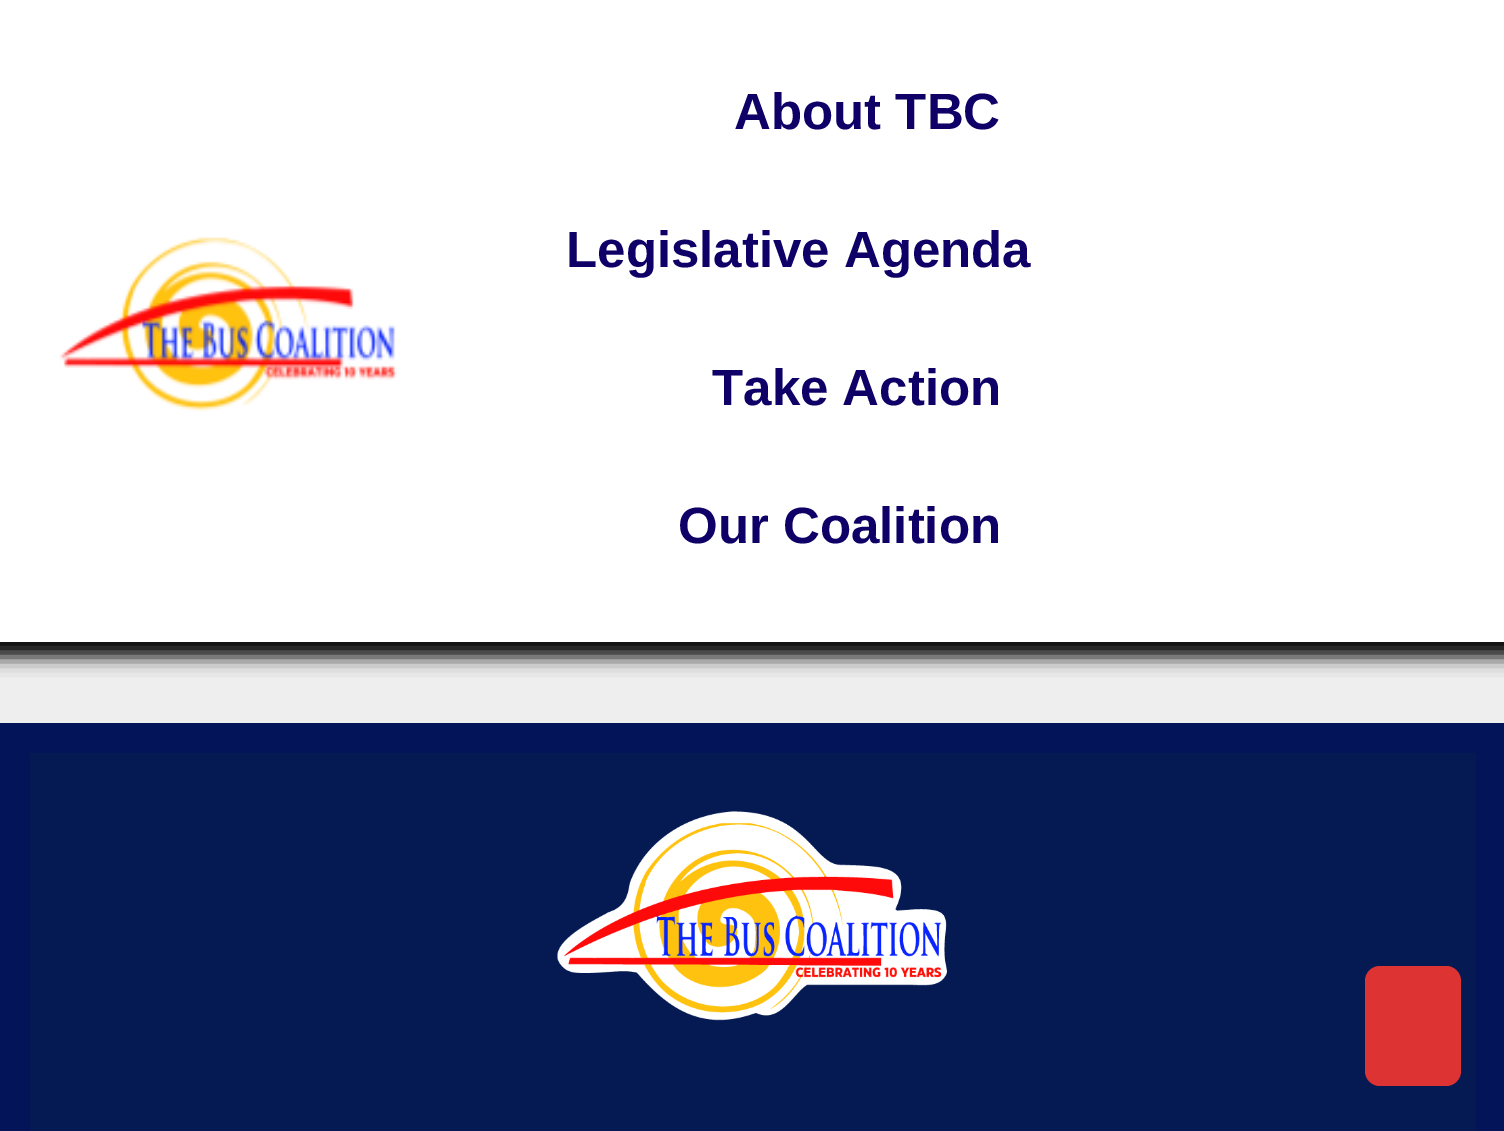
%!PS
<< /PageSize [1504 1131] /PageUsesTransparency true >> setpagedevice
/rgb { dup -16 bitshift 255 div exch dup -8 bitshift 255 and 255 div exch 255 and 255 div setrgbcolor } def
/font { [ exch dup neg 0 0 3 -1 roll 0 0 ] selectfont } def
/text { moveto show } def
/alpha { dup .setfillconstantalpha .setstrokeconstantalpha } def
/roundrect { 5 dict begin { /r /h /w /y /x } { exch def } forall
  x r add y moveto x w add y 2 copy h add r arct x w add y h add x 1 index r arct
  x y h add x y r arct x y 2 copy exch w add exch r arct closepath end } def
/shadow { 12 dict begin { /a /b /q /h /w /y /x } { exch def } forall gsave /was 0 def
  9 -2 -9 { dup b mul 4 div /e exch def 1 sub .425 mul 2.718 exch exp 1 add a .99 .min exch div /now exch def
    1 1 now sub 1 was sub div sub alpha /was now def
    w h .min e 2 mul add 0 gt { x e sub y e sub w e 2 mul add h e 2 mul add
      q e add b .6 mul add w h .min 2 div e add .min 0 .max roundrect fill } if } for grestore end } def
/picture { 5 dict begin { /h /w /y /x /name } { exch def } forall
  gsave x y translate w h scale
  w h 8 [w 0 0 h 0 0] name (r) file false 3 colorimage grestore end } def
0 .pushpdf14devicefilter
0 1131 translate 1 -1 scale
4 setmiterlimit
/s1 { /LiberationSans-Bold 51 font 16#0E0066 rgb } def
16#EEEEEE rgb
0 0 1504 1131 rectfill
16#000000 rgb
-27 -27 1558 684 0 9 1 shadow
16#FFFFFF rgb
0 0 1504 642 rectfill
(pic1.raw) 59 237 338 175 picture
s1
(About TBC) 734 129 text
(Legislative Agenda) 566 267 text
(Take Action) 712 405 text
(Our Coalition) 678 543 text
16#031459 rgb
0 723 1504 408 rectfill
16#051A53 rgb
30 753 1446 378 rectfill
(pic2.raw) 557 811 390 210 picture
16#DD3333 rgb
1365 966 96 120 15 roundrect fill
.poppdf14devicefilter showpage
